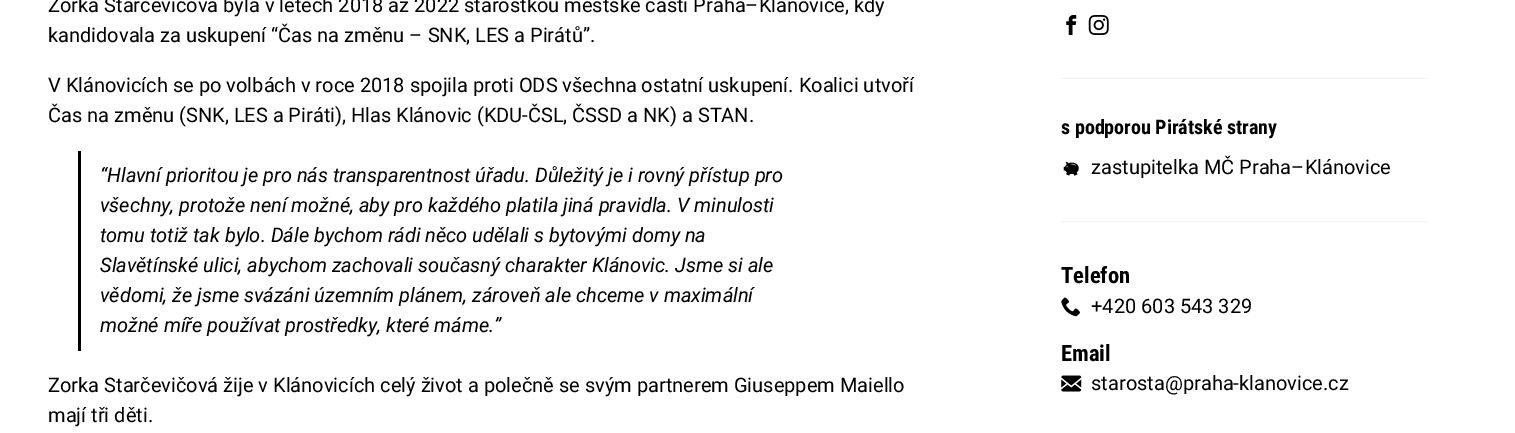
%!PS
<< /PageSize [1515 433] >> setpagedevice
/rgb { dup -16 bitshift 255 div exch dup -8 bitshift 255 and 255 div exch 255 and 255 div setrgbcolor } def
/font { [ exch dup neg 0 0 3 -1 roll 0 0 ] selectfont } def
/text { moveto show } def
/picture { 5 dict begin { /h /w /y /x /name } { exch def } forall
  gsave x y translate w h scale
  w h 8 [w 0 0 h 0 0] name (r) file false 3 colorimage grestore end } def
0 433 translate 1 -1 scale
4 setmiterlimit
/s1 { /Roboto-Regular 20 font 16#000000 rgb } def
/s2 { /Roboto-Italic 20 font 16#000000 rgb } def
/s3 { /RobotoCondensed-Bold 20 font 16#000000 rgb } def
/s4 { /RobotoCondensed-Bold 22.5 font 16#000000 rgb } def
16#FFFFFF rgb
0 0 1515 433 rectfill
s1
(Zorka Starčevičová byla v letech 2018 až 2022 starostkou městské části Praha–Klánovice, kdy) 48 12 text
(kandidovala za uskupení “Čas na změnu – SNK, LES a Pirátů”.) 48 42 text
(V Klánovicích se po volbách v roce 2018 spojila proti ODS všechna ostatní uskupení. Koalici utvoří) 48 92 text
(Čas na změnu \(SNK, LES a Piráti\), Hlas Klánovic \(KDU-ČSL, ČSSD a NK\) a STAN.) 48 122 text
78 151 3 200 rectfill
s2
(“Hlavní prioritou je pro nás transparentnost úřadu. Důležitý je i rovný přístup pro) 100 182 text
(všechny, protože není možné, aby pro každého platila jiná pravidla. V minulosti) 100 212 text
(tomu totiž tak bylo. Dále bychom rádi něco udělali s bytovými domy na) 100 242 text
(Slavětínské ulici, abychom zachovali současný charakter Klánovic. Jsme si ale) 100 272 text
(vědomi, že jsme svázáni územním plánem, zároveň ale chceme v maximální) 100 302 text
(možné míře používat prostředky, které máme.”) 100 332 text
s1
(Zorka Starčevičová žije v Klánovicích celý život a polečně se svým partnerem Giuseppem Maiello) 48 392 text
(mají tři děti.) 48 422 text
(pic1.raw) 1066 15 11 20 picture
(pic2.raw) 1088 15 21 20 picture
16#F3F3F3 rgb
1061 78 367 1 rectfill
s3
(s podporou Pirátské strany) 1061 134 text
(pic3.raw) 1063 161 16 15 picture
s1
(zastupitelka MČ Praha–Klánovice) 1091 174 text
16#F3F3F3 rgb
1061 221 367 1 rectfill
s4
(Telefon) 1061 283 text
(pic4.raw) 1061 297 19 20 picture
s1
(+420 603 543 329) 1091 313 text
s4
(Email) 1061 361 text
(pic5.raw) 1061 375 21 17 picture
s1
(starosta@praha-klanovice.cz) 1091 390 text
showpage
